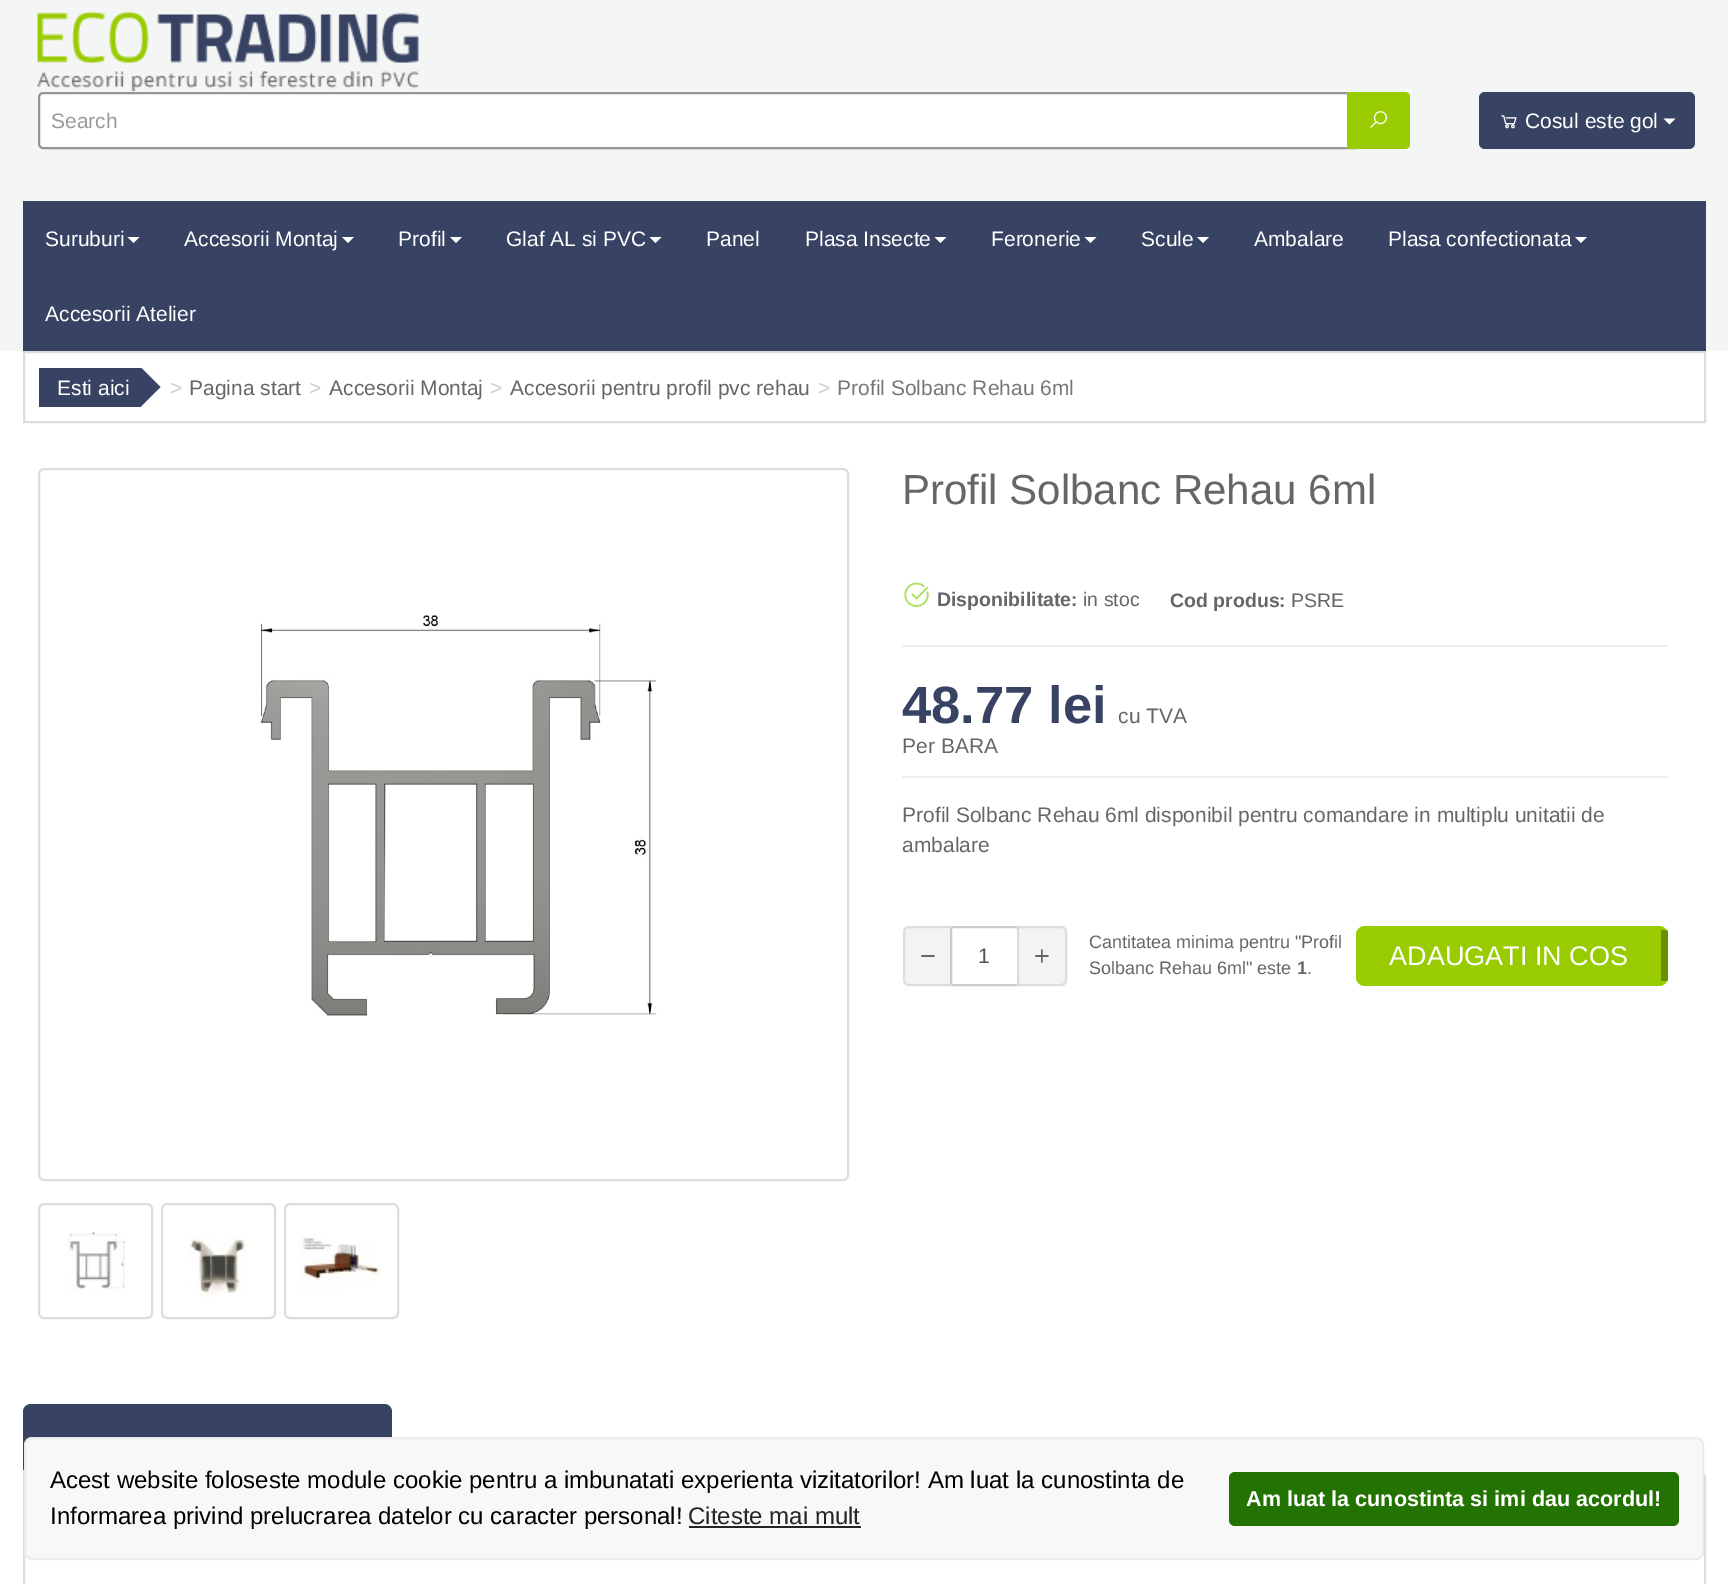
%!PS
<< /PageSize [1728 1584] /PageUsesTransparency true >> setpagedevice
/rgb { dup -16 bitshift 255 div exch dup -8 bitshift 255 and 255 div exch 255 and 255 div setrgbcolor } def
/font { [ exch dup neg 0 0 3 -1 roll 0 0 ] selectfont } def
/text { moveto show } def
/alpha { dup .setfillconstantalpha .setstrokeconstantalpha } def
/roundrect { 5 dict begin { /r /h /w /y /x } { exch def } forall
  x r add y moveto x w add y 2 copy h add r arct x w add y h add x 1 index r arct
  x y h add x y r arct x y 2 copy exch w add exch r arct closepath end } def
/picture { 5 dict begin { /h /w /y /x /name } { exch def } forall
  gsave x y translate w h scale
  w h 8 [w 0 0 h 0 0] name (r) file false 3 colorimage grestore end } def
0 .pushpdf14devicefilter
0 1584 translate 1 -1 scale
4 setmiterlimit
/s1 { /LiberationSans-Regular 21 font 16#999999 rgb } def
/s2 { /LiberationSans-Regular 21 font 16#FFFFFF rgb } def
/s3 { /LiberationSans-Regular 21 font 16#CCCCCC rgb } def
/s4 { /LiberationSans-Regular 21 font 16#666666 rgb } def
/s5 { /LiberationSans-Regular 21 font 16#777777 rgb } def
/s6 { /LiberationSans-Regular 42 font 16#666666 rgb } def
/s7 { /LiberationSans-Bold 19.5 font 16#666666 rgb } def
/s8 { /LiberationSans-Regular 19.5 font 16#666666 rgb } def
/s9 { /LiberationSans-Bold 52.5 font 16#384363 rgb } def
/s10 { /LiberationSans-Regular 27 font 16#666666 rgb } def
/s11 { /LiberationSans-Regular 21 font 16#555555 rgb } def
/s12 { /LiberationSans-Regular 18 font 16#666666 rgb } def
/s13 { /LiberationSans-Bold 18 font 16#666666 rgb } def
/s14 { /LiberationSans-Regular 27 font 16#FFFFFF rgb } def
/s15 { /LiberationSans-Regular 24 font 16#000000 rgb } def
/s16 { /LiberationSans-Regular 24 font 16#252525 rgb } def
/s17 { /LiberationSans-Bold 21.6 font 16#FFFFFF rgb } def
16#FFFFFF rgb
0 0 1728 1584 rectfill
16#F4F5F5 rgb
0 0 1728 351 rectfill
(pic1.raw) 37 11 382 80 picture
16#FFFFFF rgb
43 93 moveto 1355 93 lineto 1355 148 lineto 43 148 lineto 41 148 39 146 39 144 curveto 39 97 lineto 39 95 41 93 43 93 curveto closepath gsave fill grestore
16#939598 rgb
2 setlinewidth
stroke
s1
(Search) 51 128 text
16#99CC00 rgb
1347 92 moveto 1405 92 lineto 1408 92 1410 94 1410 97 curveto 1410 144 lineto 1410 147 1408 149 1405 149 curveto 1347 149 lineto closepath fill
(pic2.raw) 1370 111 17 17 picture
16#384363 rgb
1479 92 216 57 6 roundrect fill
(pic3.raw) 1501 115 16 14 picture
s2
(Cosul este gol) 1525 128 text
1663.5 118.5 moveto 1675.5 118.5 lineto 1669.5 124.5 lineto closepath fill
16#384363 rgb
23 201 1683 150 rectfill
s2
(Suruburi) 45 246 text
127.5 237 moveto 139.5 237 lineto 133.5 243 lineto closepath fill
(Accesorii Montaj) 184 246 text
342 237 moveto 354 237 lineto 348 243 lineto closepath fill
(Profil) 398 246 text
450 237 moveto 462 237 lineto 456 243 lineto closepath fill
(Glaf AL si PVC) 506 246 text
649.5 237 moveto 661.5 237 lineto 655.5 243 lineto closepath fill
(Panel) 706 246 text
(Plasa Insecte) 805 246 text
934.5 237 moveto 946.5 237 lineto 940.5 243 lineto closepath fill
(Feronerie) 991 246 text
1084.5 237 moveto 1096.5 237 lineto 1090.5 243 lineto closepath fill
(Scule) 1141 246 text
1197 237 moveto 1209 237 lineto 1203 243 lineto closepath fill
(Ambalare) 1254 246 text
(Plasa confectionata) 1388 246 text
1575 237 moveto 1587 237 lineto 1581 243 lineto closepath fill
(Accesorii Atelier) 45 321 text
16#DDDDDD rgb
24 352 1681 70 rectstroke
16#384363 rgb
39 368 102 39 rectfill
s2
(Esti aici) 57 395 text
16#384363 rgb
141 406.5 moveto 141 367.5 lineto 160.5 387 lineto closepath fill
s3
(>) 170 395 text
s4
(Pagina start) 189 395 text
s3
(>) 309 395 text
s4
(Accesorii Montaj) 329 395 text
s3
(>) 490 395 text
s4
(Accesorii pentru profil pvc rehau) 510 395 text
s3
(>) 818 395 text
s5
(Profil Solbanc Rehau 6ml) 837 395 text
16#DDDDDD rgb
39 469 809 711 5 roundrect stroke
(pic4.raw) 261 615 396 401 picture
39 1204 113 114 5 roundrect stroke
(pic5.raw) 68 1232 57 59 picture
162 1204 113 114 5 roundrect stroke
(pic6.raw) 189 1234 60 63 picture
285 1204 113 114 5 roundrect stroke
(pic7.raw) 300 1233 83 58 picture
s6
(Profil Solbanc Rehau 6ml) 902 504 text
(pic8.raw) 904 582 25 25 picture
s7
(Disponibilitate:) 937 606 text
s8
(in stoc) 1083 606 text
s7
(Cod produs:) 1170 607 text
s8
(PSRE) 1291 607 text
16#EEEEEE rgb
902 645 766 2 rectfill
s9
(48.77 lei) 902 723 text
s4
(cu TVA) 1118 723 text
(Per BARA) 902 753 text
16#EEEEEE rgb
902 776 766 2 rectfill
s4
(Profil Solbanc Rehau 6ml disponibil pentru comandare in multiplu unitatii de) 902 822 text
(ambalare) 902 852 text
16#F3F3F3 rgb
909 927 moveto 952 927 lineto 952 985 lineto 909 985 lineto 906 985 904 983 904 980 curveto 904 932 lineto 904 929 906 927 909 927 curveto closepath gsave fill grestore
16#DDDDDD rgb
stroke
s10
(−) 920 965 text
16#FFFFFF rgb
950 926 69 60 3 roundrect fill
16#ECECEC rgb
952 928 moveto 1016 928 lineto 1017 930 lineto 1017 924 1011 927 1005 927 curveto 963 927 lineto 957 927 951 924 951 930 curveto closepath fill
16#CCCCCC rgb
951 927 67 58 2 roundrect stroke
s11
(1) 978 963 text
16#F3F3F3 rgb
1018 927 moveto 1061 927 lineto 1064 927 1066 929 1066 932 curveto 1066 980 lineto 1066 983 1064 985 1061 985 curveto 1018 985 lineto closepath gsave fill grestore
16#DDDDDD rgb
stroke
s10
(+) 1034 965 text
s12
(Cantitatea minima pentru "Profil) 1089 948 text
(Solbanc Rehau 6ml" este) 1089 974 text
s13
(1) 1297 974 text
s12
(.) 1307 974 text
16#99CC00 rgb
1356 926 312 60 9 roundrect fill
0.3 alpha
16#000000 rgb
1661 930 7 51 rectfill
1 alpha
s14
(ADAUGATI IN COS) 1389 965 text
16#384363 rgb
31 1404 moveto 384 1404 lineto 388.5 1404 392 1407.5 392 1412 curveto 392 1470 lineto 23 1470 lineto 23 1412 lineto 23 1407.5 26.5 1404 31 1404 curveto closepath fill
16#DDDDDD rgb
24 1471 moveto 1698 1471 lineto 1702 1471 1705 1474 1705 1478 curveto 1705 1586 lineto 1705 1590 1702 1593 1698 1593 curveto 31 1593 lineto 27 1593 24 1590 24 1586 curveto closepath stroke
16#F8F8F8 rgb
25 1438 1678 121 7 roundrect gsave fill grestore
16#ECECEC rgb
stroke
s15
(Acest website foloseste module cookie pentru a imbunatati experienta vizitatorilor! Am luat la cunostinta de) 50 1488 text
(Informarea privind prelucrarea datelor cu caracter personal!) 50 1524 text
s16
(Citeste mai mult) 688 1524 text
689 1526 172 2 rectfill
16#237303 rgb
1229 1472 450 54 6 roundrect fill
s17
(Am luat la cunostinta si imi dau acordul!) 1246 1506 text
.poppdf14devicefilter showpage
